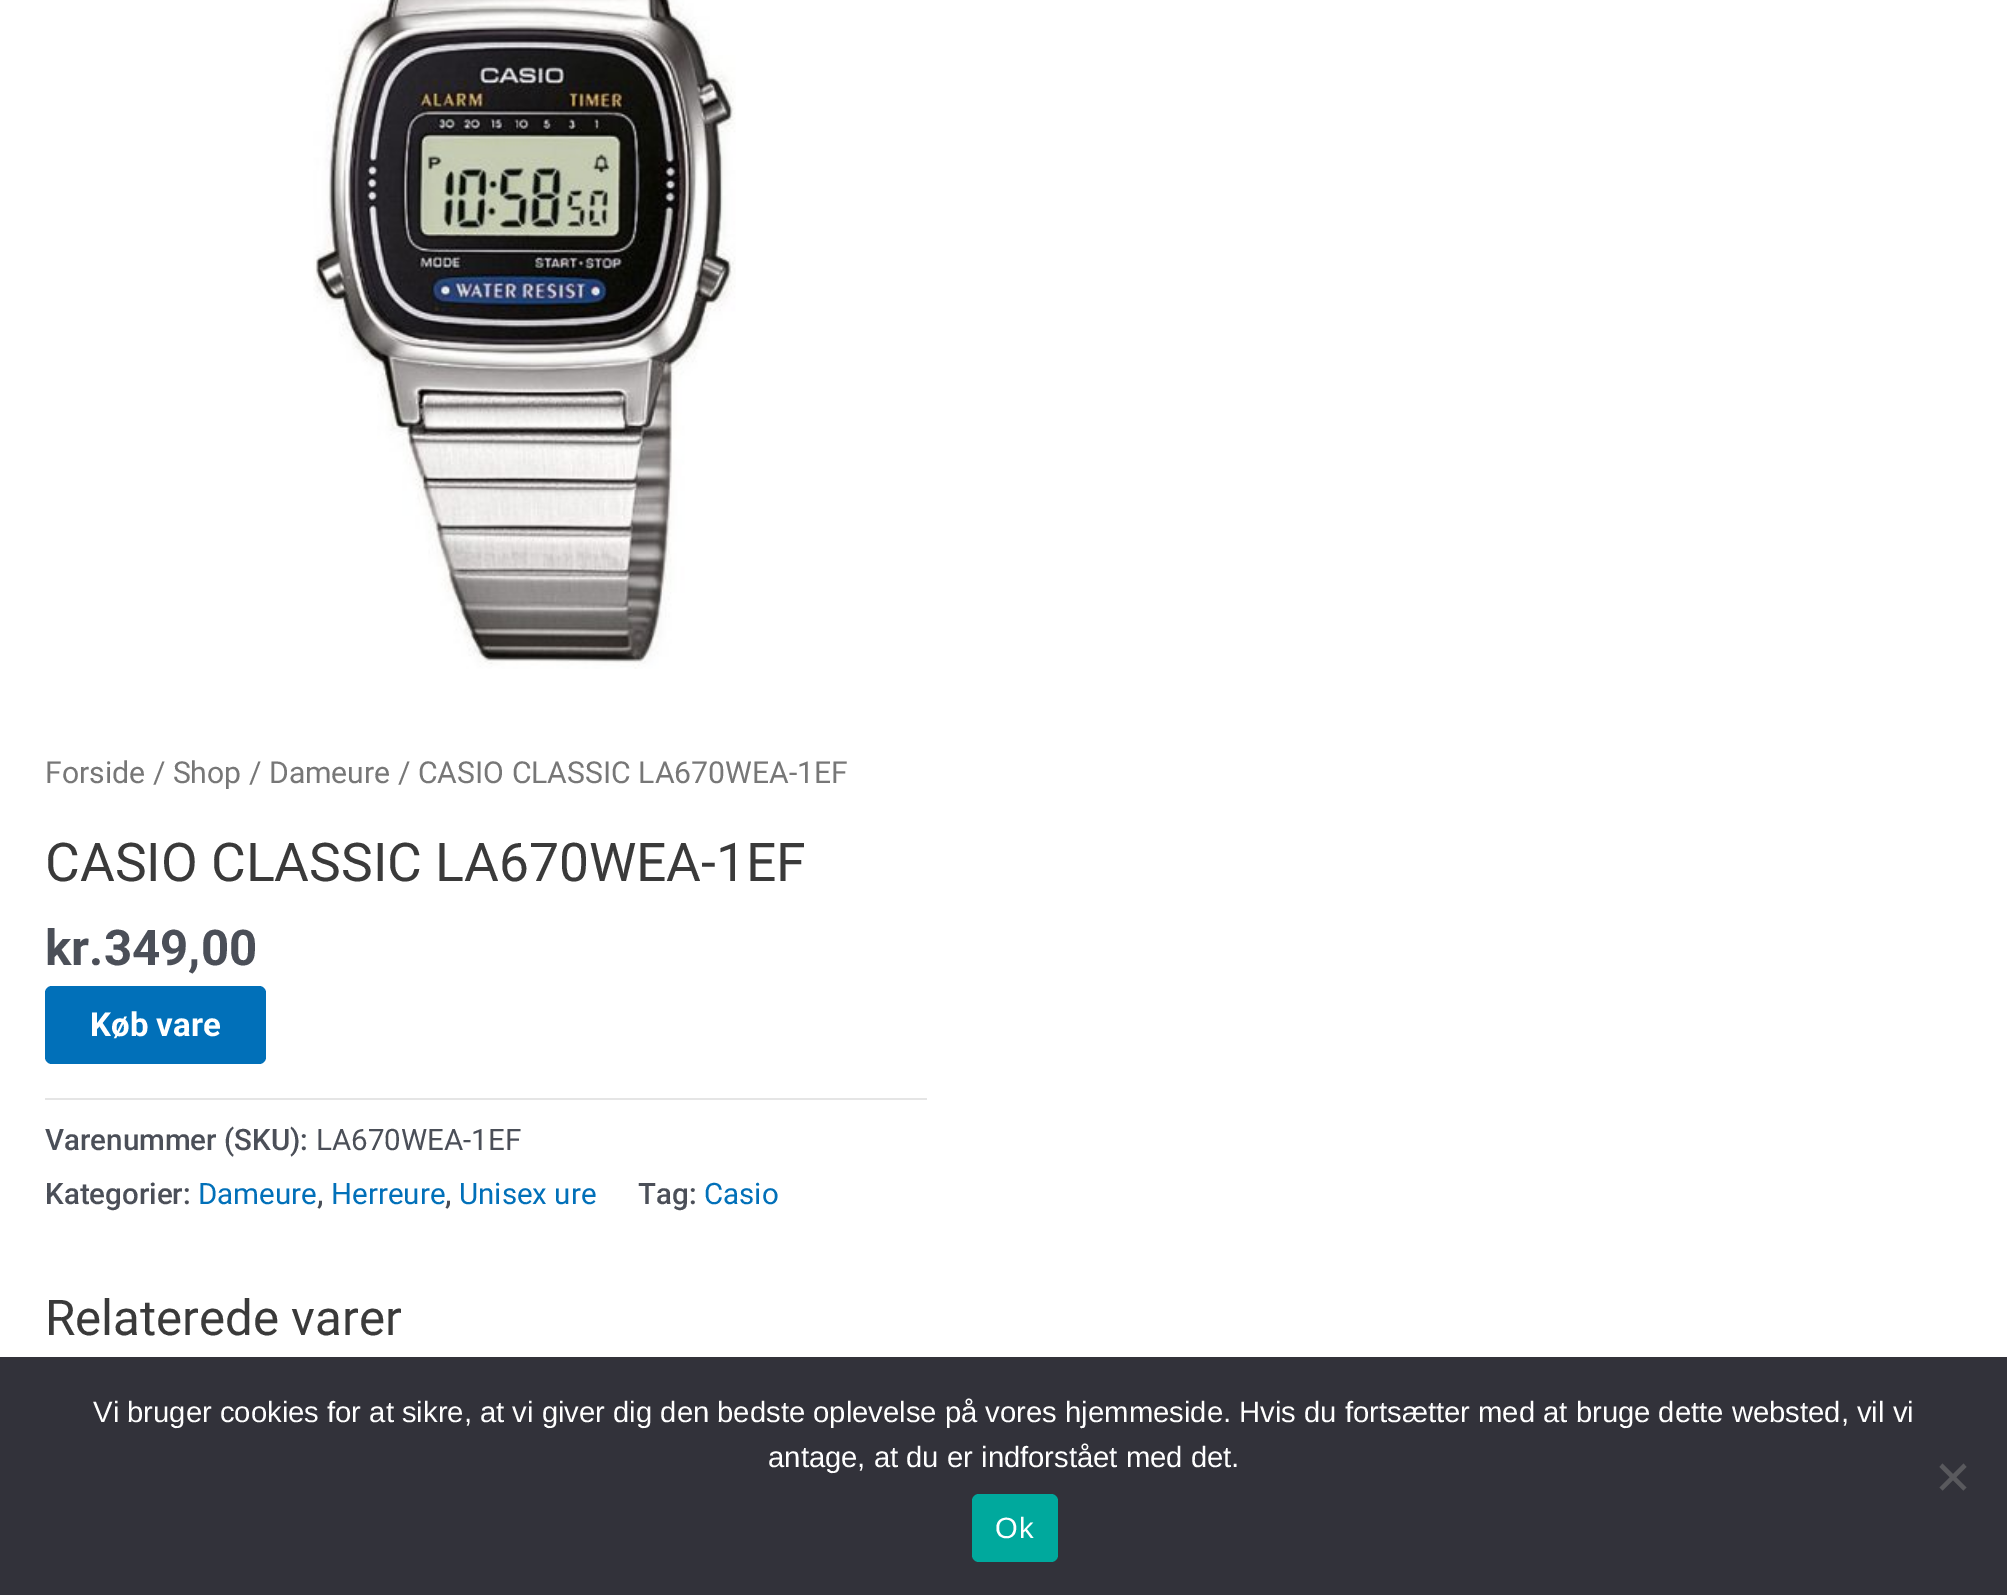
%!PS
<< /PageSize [2007 1595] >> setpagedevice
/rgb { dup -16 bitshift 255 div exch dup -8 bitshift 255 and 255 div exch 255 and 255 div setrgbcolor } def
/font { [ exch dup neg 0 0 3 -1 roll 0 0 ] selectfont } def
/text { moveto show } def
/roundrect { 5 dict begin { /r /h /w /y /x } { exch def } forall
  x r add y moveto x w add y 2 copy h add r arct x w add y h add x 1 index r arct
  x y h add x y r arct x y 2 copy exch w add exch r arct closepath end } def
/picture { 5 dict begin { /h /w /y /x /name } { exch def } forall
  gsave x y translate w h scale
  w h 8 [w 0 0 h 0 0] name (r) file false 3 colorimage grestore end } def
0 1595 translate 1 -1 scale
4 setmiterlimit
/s1 { /Roboto-Regular 30.2 font 16#777777 rgb } def
/s2 { /Roboto-Regular 53.4 font 16#3A3A3A rgb } def
/s3 { /Roboto-Bold 49.25 font 16#4B4F58 rgb } def
/s4 { /Roboto-Bold 33 font 16#FFFFFF rgb } def
/s5 { /Roboto-Medium 29.5 font 16#4B4F58 rgb } def
/s6 { /Roboto-Regular 29.5 font 16#4B4F58 rgb } def
/s7 { /Roboto-Regular 29.5 font 16#0170B9 rgb } def
/s8 { /Roboto-Regular 49.25 font 16#3A3A3A rgb } def
/s9 { /LiberationSans-Regular 29.25 font 16#FFFFFF rgb } def
16#FFFFFF rgb
0 0 2007 1595 rectfill
(pic1.raw) 313 0 423 669 picture
s1
(Forside / Shop / Dameure / CASIO CLASSIC LA670WEA-1EF) 45 783 text
s2
(CASIO CLASSIC LA670WEA-1EF) 45 881 text
s3
(kr.349,00) 45 965 text
16#0170B9 rgb
45 986 221 78 7 roundrect fill
s4
(Køb vare) 90 1036 text
16#E5E5E5 rgb
45 1098 882 2 rectfill
s5
(Varenummer \(SKU\):) 45 1150 text
s6
(LA670WEA-1EF) 316 1150 text
s5
(Kategorier:) 45 1204 text
s7
(Dameure) 198 1204 text
s5
(,) 317 1204 text
s7
(Herreure) 331 1204 text
s5
(,) 445 1204 text
s7
(Unisex ure) 459 1204 text
s5
(Tag:) 638 1204 text
s7
(Casio) 704 1204 text
s8
(Relaterede varer) 45 1335 text
16#32323A rgb
0 1357 2007 238 rectfill
s9
(Vi bruger cookies for at sikre, at vi giver dig den bedste oplevelse på vores hjemmeside. Hvis du fortsætter med at bruge dette websted, vil vi) 93 1422 text
(antage, at du er indforstået med det.) 768 1467 text
16#59595D rgb
1963.5 1463.5 moveto 1966.5 1467 lineto 1942.5 1490.5 lineto 1939.5 1487.5 lineto closepath fill
1939.5 1467 moveto 1942.5 1463.5 lineto 1966.5 1487.5 lineto 1963.5 1490.5 lineto closepath fill
16#00A99D rgb
972 1494 86 68 7 roundrect fill
16#FFFFFF rgb
995 1538 moveto 1 0 (Ok) ashow
showpage
